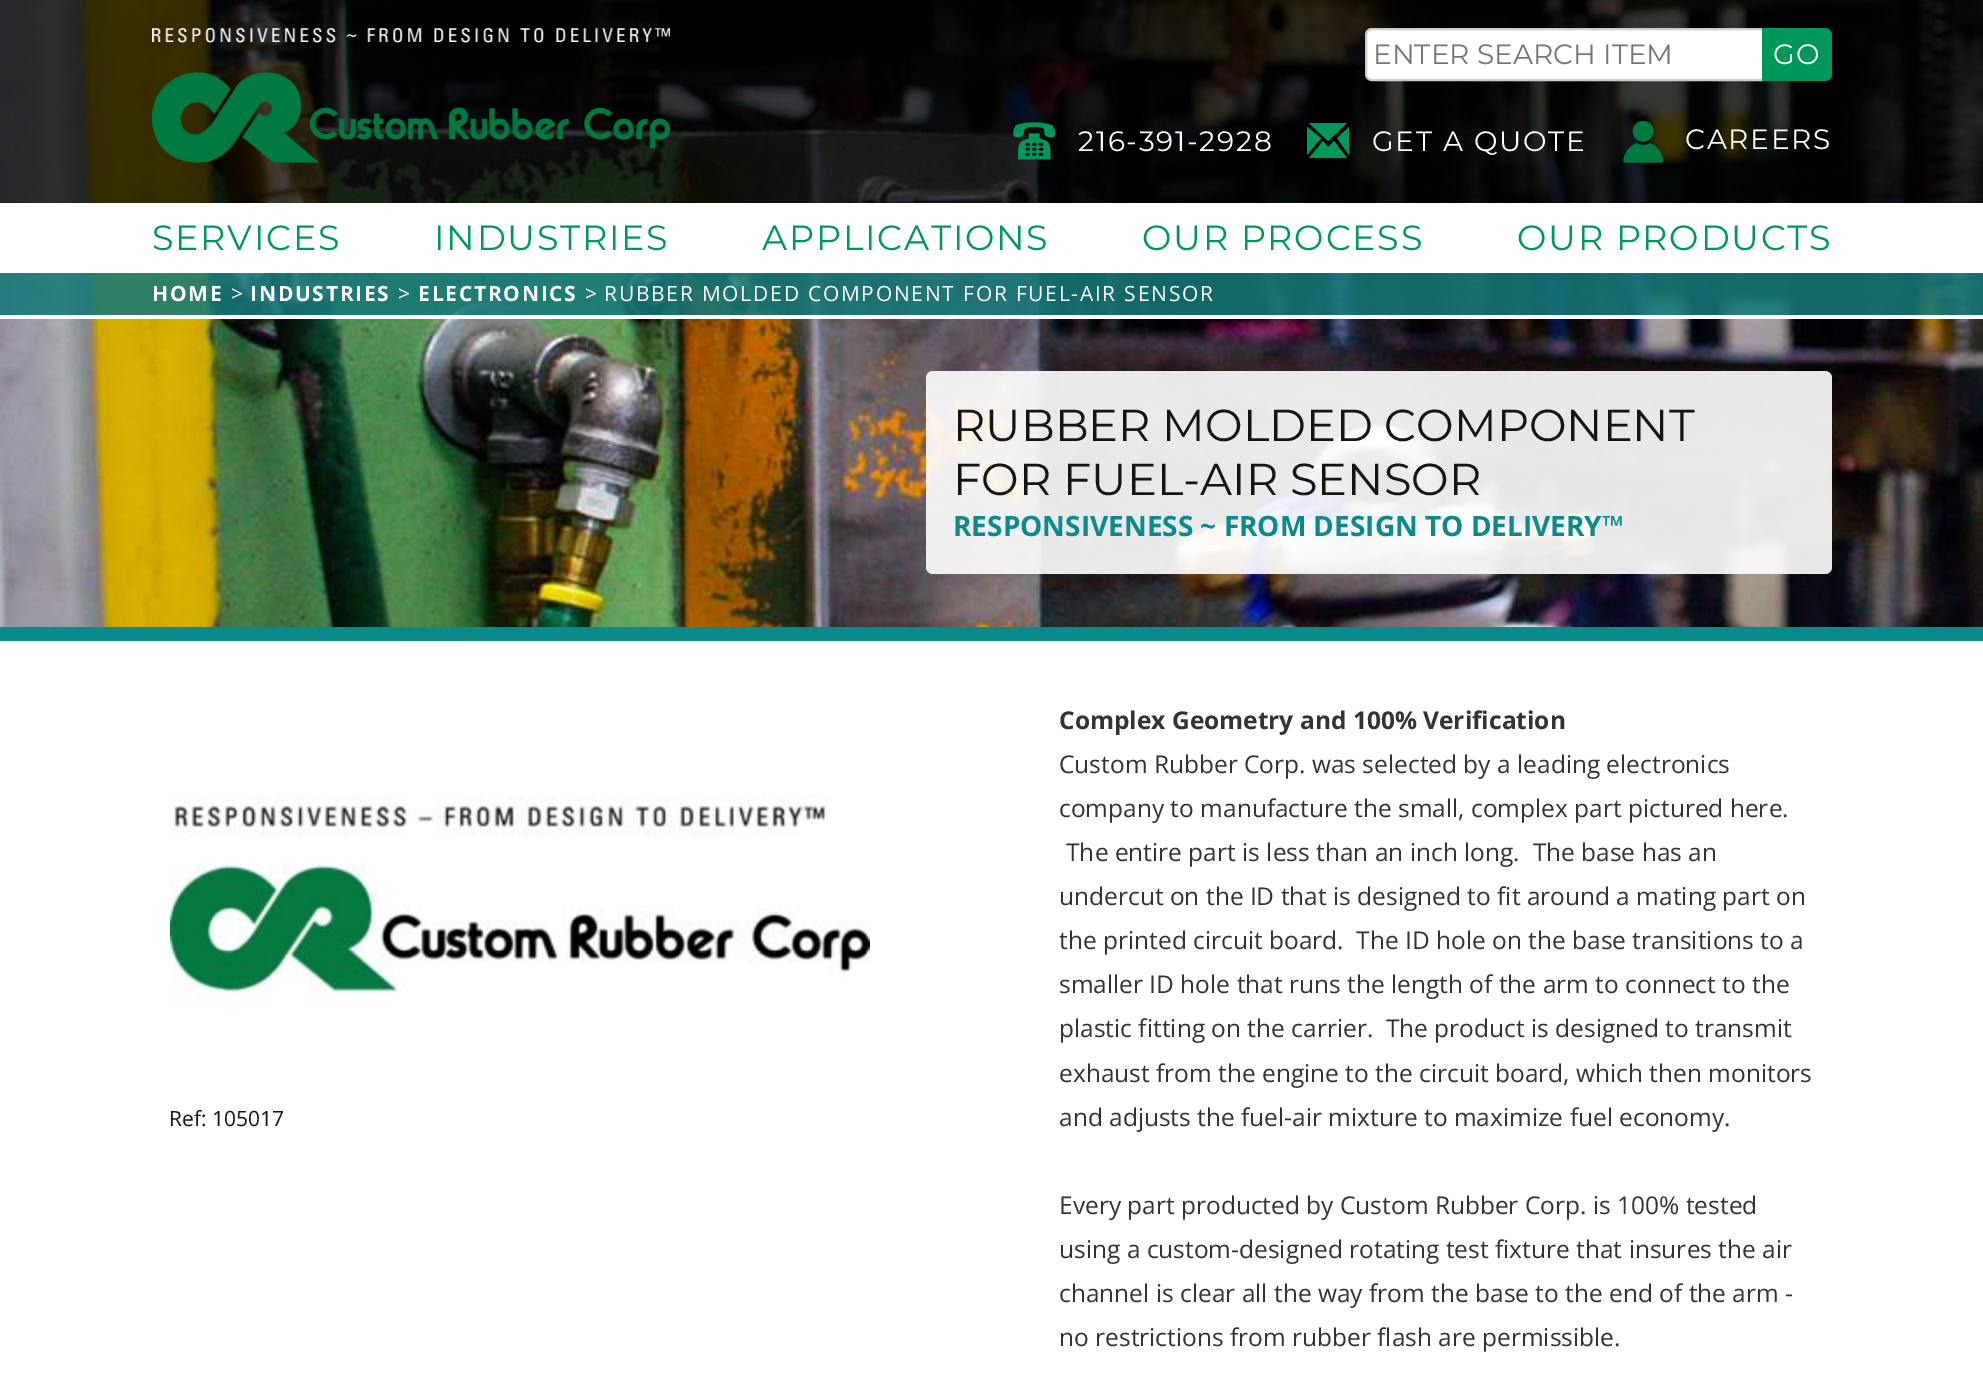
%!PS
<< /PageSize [1983 1394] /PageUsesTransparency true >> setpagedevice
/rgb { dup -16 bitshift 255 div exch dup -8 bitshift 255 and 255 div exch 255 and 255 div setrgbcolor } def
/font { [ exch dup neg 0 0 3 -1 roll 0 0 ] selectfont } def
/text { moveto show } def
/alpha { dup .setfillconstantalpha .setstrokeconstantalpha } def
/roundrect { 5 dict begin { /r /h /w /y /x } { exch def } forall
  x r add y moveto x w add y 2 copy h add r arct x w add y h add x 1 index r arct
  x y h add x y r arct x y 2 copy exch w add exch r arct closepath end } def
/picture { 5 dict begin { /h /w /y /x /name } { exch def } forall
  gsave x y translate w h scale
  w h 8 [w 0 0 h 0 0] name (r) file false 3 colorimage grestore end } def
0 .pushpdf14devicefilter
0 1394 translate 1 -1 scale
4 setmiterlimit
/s1 { /Montserrat-Regular 28 font 16#757575 rgb } def
/s2 { /OpenSans-Regular 21 font 16#FFFFFF rgb } def
/s3 { /Montserrat-Regular 44.75 font 16#141414 rgb } def
/s4 { /OpenSans-Bold 28 font 16#0A8A8B rgb } def
/s5 { /OpenSans-Regular 21 font 16#141414 rgb } def
/s6 { /OpenSans-Bold 24.5 font 16#333333 rgb } def
/s7 { /OpenSans-Regular 24.5 font 16#333333 rgb } def
16#FFFFFF rgb
0 0 1983 1394 rectfill
(pic4.raw) 0 0 1983 627 picture
0.75 alpha
16#000000 rgb
0 0 1983 203 rectfill
1 alpha
(pic1.raw) 152 28 518 135 picture
16#FFFFFF rgb
1372 29 moveto 1763 29 lineto 1763 80 lineto 1372 80 lineto 1368.5 80 1366 77.5 1366 74 curveto 1366 35 lineto 1366 31.5 1368.5 29 1372 29 curveto closepath gsave fill grestore
16#CCCCCC rgb
2 setlinewidth
stroke
s1
(ENTER SEARCH ITEM) 1373 64 text
16#00985A rgb
1762 28 moveto 1825 28 lineto 1829 28 1832 31 1832 35 curveto 1832 74 lineto 1832 78 1829 81 1825 81 curveto 1762 81 lineto closepath fill
16#FFFFFF rgb
1773 64 moveto 1.75 0 (GO) ashow
(pic2.raw) 1013 122 43 38 picture
1078 151 moveto 1.75 0 (216-391-2928) ashow
16#00985A rgb
1328 147 moveto 1323 141 lineto 1309 158 lineto 1347 158 lineto 1334 141 lineto closepath 1328 141 moveto 1309 123 lineto 1347 123 lineto closepath 1307 127 moveto 1307 155 lineto 1321 138 lineto closepath 1337 138 moveto 1349 155 lineto 1349 127 lineto closepath fill
16#FFFFFF rgb
1372 151 moveto 1.75 0 (GET A QUOTE) ashow
(pic3.raw) 1623 121 41 42 picture
1685 149 moveto 1.75 0 (CAREERS) ashow
0 203 1983 70 rectfill
/Montserrat-Regular 35 font
16#00985A rgb
152 250 moveto 1.75 0 (SERVICES) ashow
434 250 moveto 1.75 0 (INDUSTRIES) ashow
762 250 moveto 1.75 0 (APPLICATIONS) ashow
1142 250 moveto 1.75 0 (OUR PROCESS) ashow
1517 250 moveto 1.75 0 (OUR PRODUCTS) ashow
0.86 alpha
16#157879 rgb
0 273 1983 42 rectfill
1 alpha
16#FFFFFF rgb
0 315 1983 4 rectfill
/OpenSans-Bold 21 font
152 301 moveto 1.75 0 (HOME) ashow
s2
(>) 231 301 text
/OpenSans-Bold 21 font
250 301 moveto 1.75 0 (INDUSTRIES) ashow
s2
(>) 398 301 text
/OpenSans-Bold 21 font
418 301 moveto 1.75 0 (ELECTRONICS) ashow
s2
(>) 585 301 text
604 301 moveto 1.75 0 (RUBBER MOLDED COMPONENT FOR FUEL-AIR SENSOR) ashow
0.9 alpha
926 371 906 203 7 roundrect fill
1 alpha
s3
(RUBBER MOLDED COMPONENT) 953 441 text
(FOR FUEL-AIR SENSOR) 953 495 text
s4
(RESPONSIVENESS ~ FROM DESIGN TO DELIVERY™) 953 536 text
0 627 1983 14 rectfill
(pic5.raw) 170 794 700 211 picture
s5
(Ref: 105017) 169 1126 text
s6
(Complex Geometry and 100% Verification) 1059 729 text
s7
(Custom Rubber Corp. was selected by a leading electronics) 1059 773 text
(company to manufacture the small, complex part pictured here.) 1059 817 text
(The entire part is less than an inch long.  The base has an) 1066 861 text
(undercut on the ID that is designed to fit around a mating part on) 1059 905 text
(the printed circuit board.  The ID hole on the base transitions to a) 1059 949 text
(smaller ID hole that runs the length of the arm to connect to the) 1059 993 text
(plastic fitting on the carrier.  The product is designed to transmit) 1059 1037 text
(exhaust from the engine to the circuit board, which then monitors) 1059 1082 text
(and adjusts the fuel-air mixture to maximize fuel economy.) 1059 1126 text
(Every part producted by Custom Rubber Corp. is 100% tested) 1059 1214 text
(using a custom-designed rotating test fixture that insures the air) 1059 1258 text
(channel is clear all the way from the base to the end of the arm -) 1059 1302 text
(no restrictions from rubber flash are permissible.) 1059 1346 text
.poppdf14devicefilter showpage
